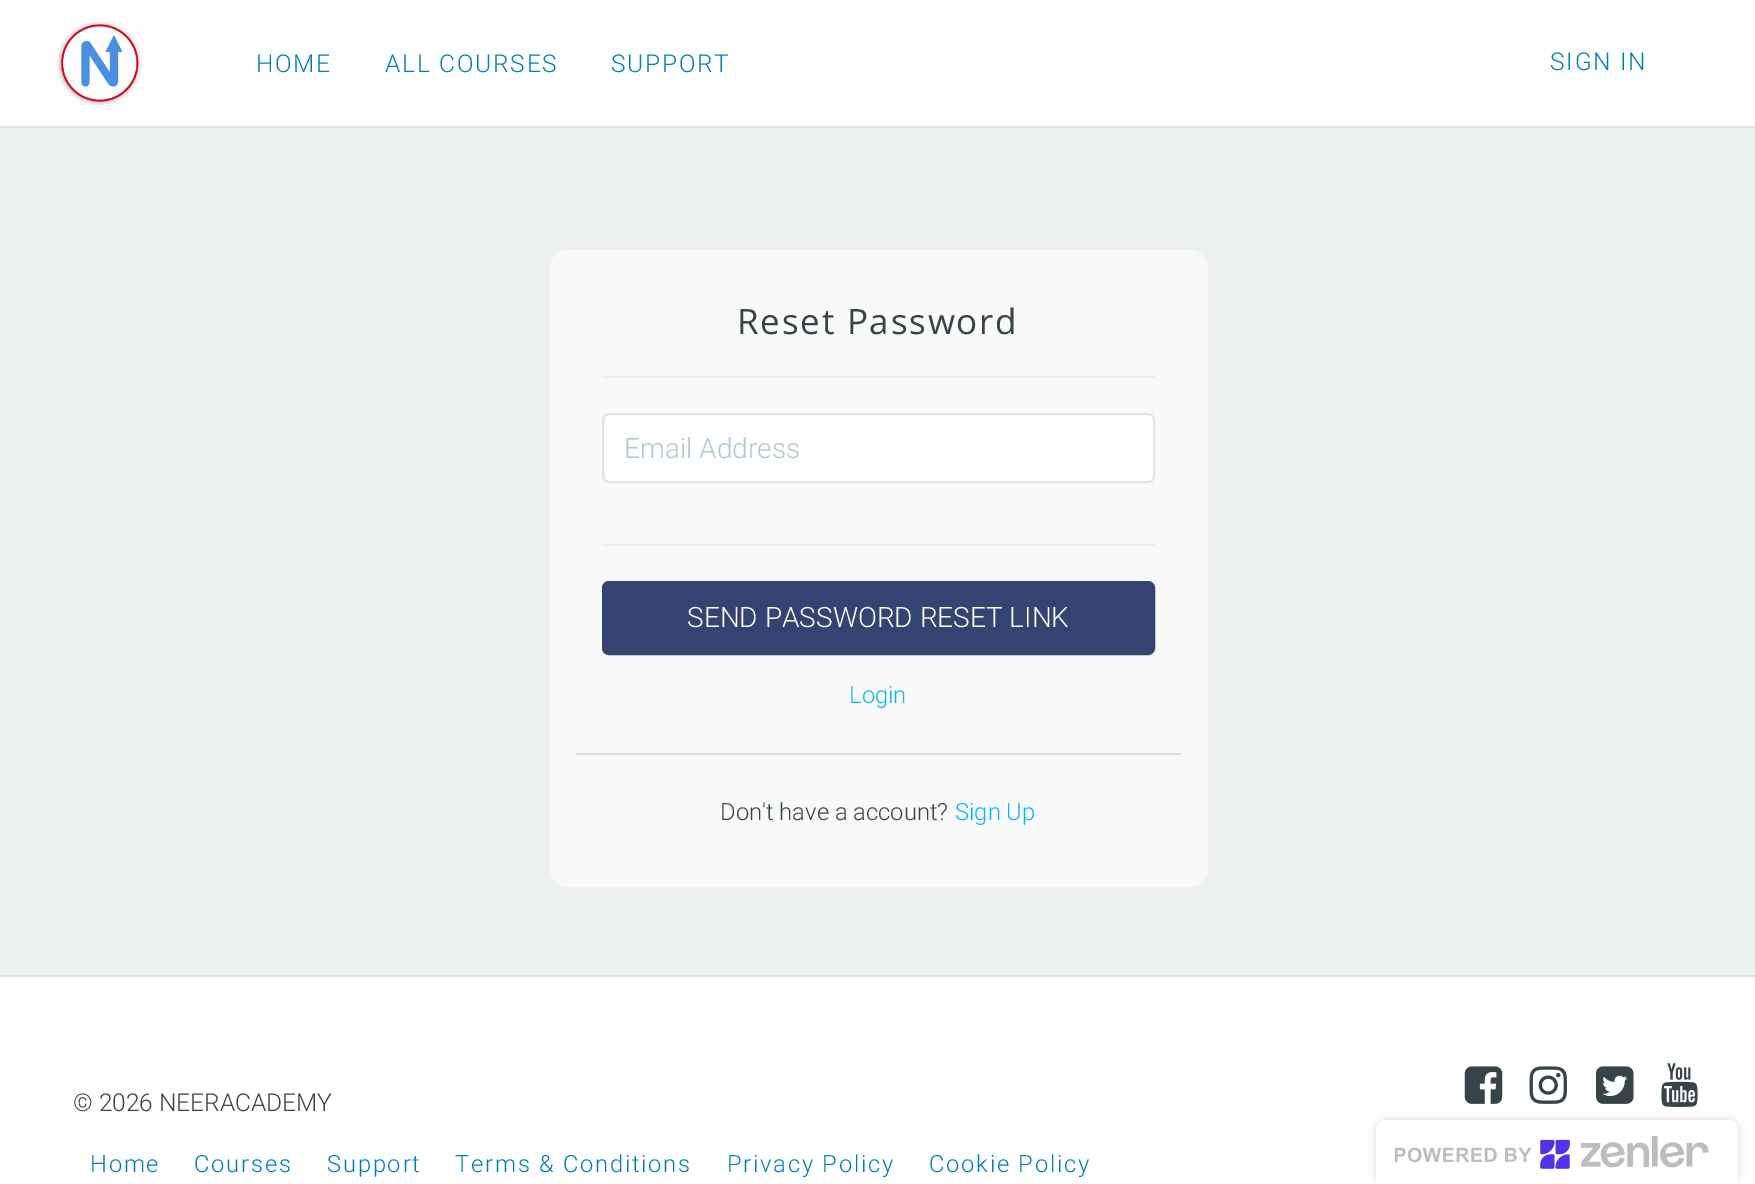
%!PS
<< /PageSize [1755 1184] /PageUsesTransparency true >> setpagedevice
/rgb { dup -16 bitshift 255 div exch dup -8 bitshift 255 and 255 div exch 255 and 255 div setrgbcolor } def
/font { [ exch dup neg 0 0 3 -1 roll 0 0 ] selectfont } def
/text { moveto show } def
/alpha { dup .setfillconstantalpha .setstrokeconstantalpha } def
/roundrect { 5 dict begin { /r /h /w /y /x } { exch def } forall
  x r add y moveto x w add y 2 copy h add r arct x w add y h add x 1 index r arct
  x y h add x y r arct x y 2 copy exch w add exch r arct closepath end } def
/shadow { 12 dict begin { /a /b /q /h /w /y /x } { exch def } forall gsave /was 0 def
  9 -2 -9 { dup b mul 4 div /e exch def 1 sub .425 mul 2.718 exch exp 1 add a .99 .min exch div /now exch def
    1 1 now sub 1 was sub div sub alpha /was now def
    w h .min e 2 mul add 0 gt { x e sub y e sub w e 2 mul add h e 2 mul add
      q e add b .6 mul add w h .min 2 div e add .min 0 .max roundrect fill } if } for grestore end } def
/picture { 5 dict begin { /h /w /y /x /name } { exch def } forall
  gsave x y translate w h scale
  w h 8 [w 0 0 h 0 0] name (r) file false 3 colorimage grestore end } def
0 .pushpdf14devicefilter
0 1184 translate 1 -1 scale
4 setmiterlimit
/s1 { /Roboto-Light 28 font 16#B2C6CD rgb } def
/s2 { /Roboto-Light 28 font 16#FFFFFF rgb } def
/s3 { /Roboto-Light 23.75 font 16#02BAF2 rgb } def
/s4 { /Roboto-Light 23.75 font 16#364347 rgb } def
/s5 { /Roboto-Light 24.5 font 16#414141 rgb } def
16#FFFFFF rgb
0 0 1755 1184 rectfill
16#E4E4E4 rgb
0 126 1755 2 rectfill
(pic1.raw) 56 21 86 85 picture
/Roboto-Light 24.5 font
16#007DB8 rgb
256 72 moveto 1.75 0 (HOME) ashow
385 72 moveto 1.75 0 (ALL COURSES) ashow
611 72 moveto 1.75 0 (SUPPORT) ashow
1550 70 moveto 1.75 0 (SIGN IN) ashow
16#ECF0F1 rgb
0 128 1755 847 rectfill
16#F9F9F9 rgb
550 250 658 637 18 roundrect fill
/OpenSans-Regular 35 font
16#364347 rgb
737 334 moveto 1.75 0 (Reset Password) ashow
16#EEEEEE rgb
602 376 553 2 rectfill
16#FFFFFF rgb
603 414 551 68 6 roundrect gsave fill grestore
16#E4E4E4 rgb
2 setlinewidth
stroke
s1
(Email Address) 624 458 text
16#EEEEEE rgb
602 544 553 2 rectfill
16#344372 rgb
603 582 551 72 6 roundrect gsave fill grestore
stroke
s2
(SEND PASSWORD RESET LINK) 687 627 text
s3
(Login) 849 703 text
16#D6E1E5 rgb
576 753 605 2 rectfill
s4
(Don't have a account?) 720 820 text
s3
(Sign Up) 955 820 text
16#E4E4E4 rgb
0 975 1755 2 rectfill
(pic2.raw) 1464 1066 39 38 picture
(pic3.raw) 1529 1066 38 38 picture
(pic4.raw) 1596 1066 38 38 picture
(pic5.raw) 1661 1063 37 44 picture
s5
(© 2026 NEERACADEMY) 73 1111 text
/Roboto-Light 23.75 font
16#007DB8 rgb
90 1172 moveto 1.75 0 (Home) ashow
194 1172 moveto 1.75 0 (Courses) ashow
327 1172 moveto 1.75 0 (Support) ashow
455 1172 moveto 1.75 0 (Terms & Conditions) ashow
727 1172 moveto 1.75 0 (Privacy Policy) ashow
929 1172 moveto 1.75 0 (Cookie Policy) ashow
16#000000 rgb
1376 1120 362 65 11 4.5 0.15 shadow
16#FFFFFF rgb
1387 1120 moveto 1727 1120 lineto 1733 1120 1738 1125 1738 1131 curveto 1738 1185 lineto 1376 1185 lineto 1376 1131 lineto 1376 1125 1381 1120 1387 1120 curveto closepath fill
(pic6.raw) 1394 1135 315 34 picture
.poppdf14devicefilter showpage
